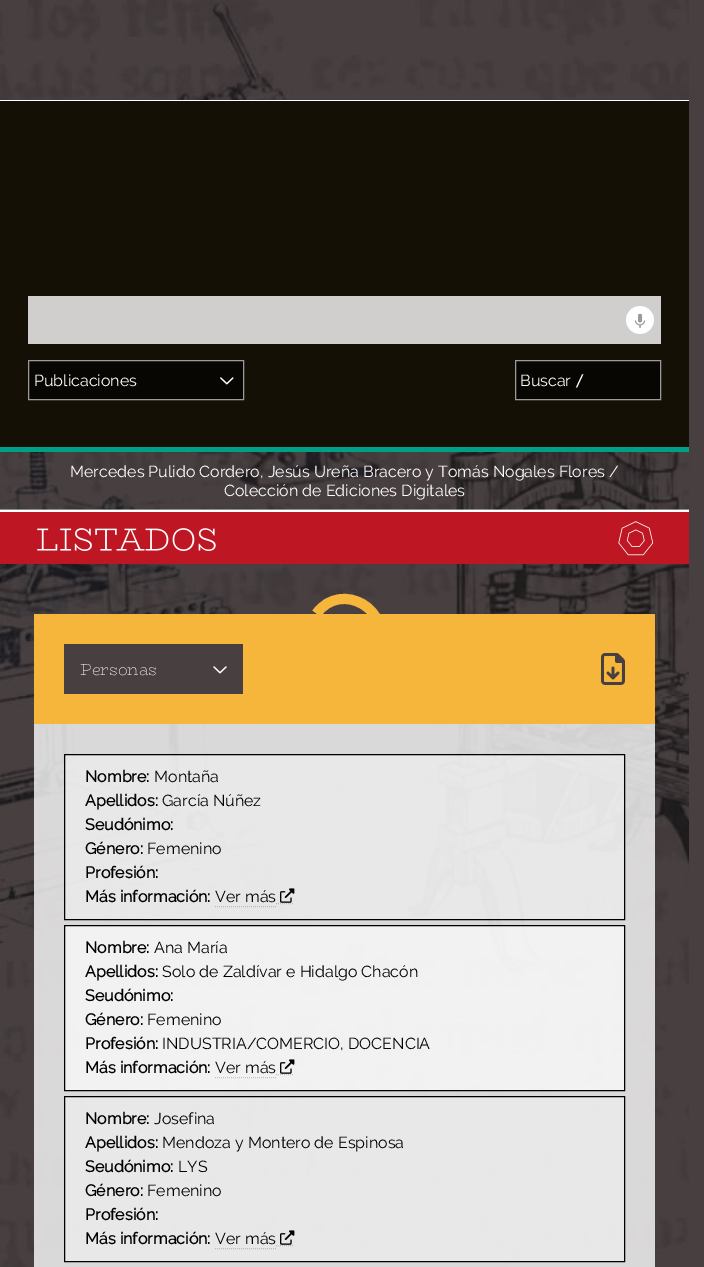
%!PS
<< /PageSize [704 1267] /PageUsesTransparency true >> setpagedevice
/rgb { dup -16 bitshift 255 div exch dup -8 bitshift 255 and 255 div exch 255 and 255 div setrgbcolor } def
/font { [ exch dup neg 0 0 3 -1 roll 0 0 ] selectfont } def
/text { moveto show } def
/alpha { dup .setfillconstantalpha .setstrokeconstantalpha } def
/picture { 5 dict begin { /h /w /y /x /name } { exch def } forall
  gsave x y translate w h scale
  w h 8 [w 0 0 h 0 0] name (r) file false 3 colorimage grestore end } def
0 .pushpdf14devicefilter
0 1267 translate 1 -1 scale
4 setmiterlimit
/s1 { /Raleway-Regular 16 font 16#FFFFFF rgb } def
/s2 { /DejaVuSansMono-Regular 16 font 16#FFFFFF rgb } def
/s3 { /BioRhyme-ExtraLight 16 font 16#FFFFFF rgb } def
/s4 { /Raleway-Bold 16 font 16#000000 rgb } def
/s5 { /Raleway-Regular 16 font 16#000000 rgb } def
16#483F40 rgb
0 0 704 1267 rectfill
(pic1.raw) 0 0 689 1267 picture
16#141005 rgb
0 101 689 346 rectfill
16#FFFFFF rgb
0 100 689 1 rectfill
16#00A086 rgb
0 447 689 5 rectfill
16#D0CFCD rgb
28 296 633 48 rectfill
(pic2.raw) 626 306 28 28 picture
16#080602 rgb
28.5 360.5 moveto 243.5 360.5 lineto 243.5 399.5 lineto 28.5 399.5 lineto closepath gsave fill grestore
16#9C9B9A rgb
stroke
s1
(Publicaciones) 34 386 text
(pic3.raw) 220 377 14 8 picture
16#080602 rgb
515.5 360.5 moveto 660.5 360.5 lineto 660.5 399.5 lineto 515.5 399.5 lineto closepath gsave fill grestore
16#9C9B9A rgb
stroke
s1
(Buscar) 520 386 text
s2
(/) 575 386 text
0.4 alpha
0 509 689 1 rectfill
1 alpha
s1
(Mercedes Pulido Cordero, Jesús Ureña Bracero y Tomás Nogales Flores /) 70 477 text
(Colección de Ediciones Digitales) 224 496 text
16#BE1622 rgb
0 512 689 52 rectfill
16#FFFFFF rgb
0 510 689 2 rectfill
(pic4.raw) 37 528 179 23 picture
(pic5.raw) 618 521 36 35 picture
0.8 alpha
34 724 621 543 rectfill
1 alpha
16#F6B63B rgb
34 614 621 110 rectfill
16#483F40 rgb
64 644 179 50 rectfill
s3
(Personas) 80 675 text
(pic6.raw) 213 666 14 8 picture
(pic7.raw) 601 653 24 32 picture
0.4 alpha
64.5 754.5 moveto 624.5 754.5 lineto 624.5 919.5 lineto 64.5 919.5 lineto closepath fill
1 alpha
16#000000 rgb
64.5 754.5 moveto 624.5 754.5 lineto 624.5 919.5 lineto 64.5 919.5 lineto closepath stroke
s4
(Nombre:) 85 782 text
s5
(Montaña) 154 782 text
s4
(Apellidos:) 85 806 text
s5
(García Núñez) 162 806 text
s4
(Seudónimo:) 85 830 text
(Género:) 85 854 text
s5
(Femenino) 147 854 text
s4
(Profesión:) 85 878 text
(Más información:) 85 902 text
s5
(Ver más) 215 902 text
16#BAB9B9 rgb
[1 1] 0 setdash
215 906.5 moveto 276 906.5 lineto stroke
276 903.5 moveto 294 903.5 lineto stroke
(pic8.raw) 280 888 15 15 picture
0.65 alpha
16#FFFFFF rgb
64.5 925.5 moveto 624.5 925.5 lineto 624.5 1090.5 lineto 64.5 1090.5 lineto closepath fill
1 alpha
16#000000 rgb
[] 0 setdash
64.5 925.5 moveto 624.5 925.5 lineto 624.5 1090.5 lineto 64.5 1090.5 lineto closepath stroke
s4
(Nombre:) 85 953 text
s5
(Ana María) 154 953 text
s4
(Apellidos:) 85 977 text
s5
(Solo de Zaldívar e Hidalgo Chacón) 162 977 text
s4
(Seudónimo:) 85 1001 text
(Género:) 85 1025 text
s5
(Femenino) 147 1025 text
s4
(Profesión:) 85 1049 text
s5
(INDUSTRIA/COMERCIO, DOCENCIA) 162 1049 text
s4
(Más información:) 85 1073 text
s5
(Ver más) 215 1073 text
16#C2C1C1 rgb
[1 1] 0 setdash
215 1077.5 moveto 276 1077.5 lineto stroke
276 1074.5 moveto 294 1074.5 lineto stroke
(pic9.raw) 280 1059 15 15 picture
0.4 alpha
16#FFFFFF rgb
64.5 1096.5 moveto 624.5 1096.5 lineto 624.5 1261.5 lineto 64.5 1261.5 lineto closepath fill
1 alpha
16#000000 rgb
[] 0 setdash
64.5 1096.5 moveto 624.5 1096.5 lineto 624.5 1261.5 lineto 64.5 1261.5 lineto closepath stroke
s4
(Nombre:) 85 1124 text
s5
(Josefina) 154 1124 text
s4
(Apellidos:) 85 1148 text
s5
(Mendoza y Montero de Espinosa) 162 1148 text
s4
(Seudónimo:) 85 1172 text
s5
(LYS) 178 1172 text
s4
(Género:) 85 1196 text
s5
(Femenino) 147 1196 text
s4
(Profesión:) 85 1220 text
(Más información:) 85 1244 text
s5
(Ver más) 215 1244 text
16#BAB9B9 rgb
[1 1] 0 setdash
215 1248.5 moveto 276 1248.5 lineto stroke
276 1245.5 moveto 294 1245.5 lineto stroke
(pic10.raw) 280 1230 15 15 picture
16#F6B63B rgb
10 setlinewidth
[] 0 setdash
316.5 613.5 moveto 341.5 579.5 394 610.5 377 648.5 curveto 373 657 366 663.5 357 667 curveto 346 671 333.5 669 324.5 662.5 curveto stroke
.poppdf14devicefilter showpage
